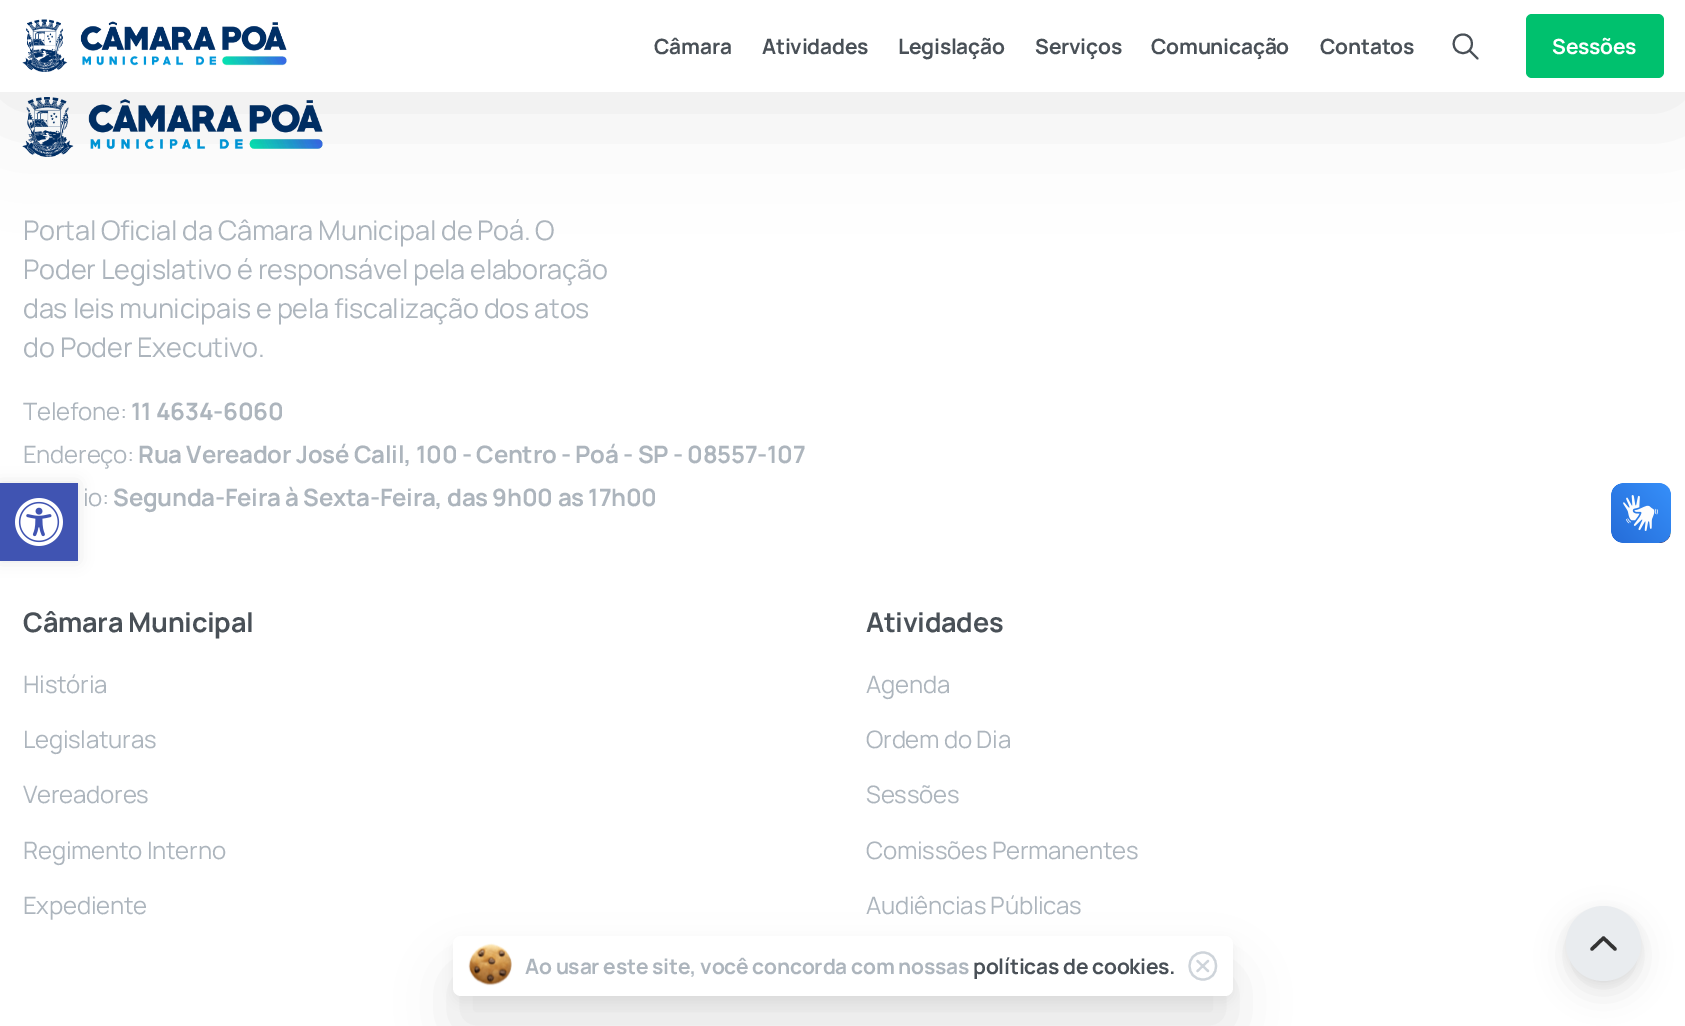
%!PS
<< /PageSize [1685 1026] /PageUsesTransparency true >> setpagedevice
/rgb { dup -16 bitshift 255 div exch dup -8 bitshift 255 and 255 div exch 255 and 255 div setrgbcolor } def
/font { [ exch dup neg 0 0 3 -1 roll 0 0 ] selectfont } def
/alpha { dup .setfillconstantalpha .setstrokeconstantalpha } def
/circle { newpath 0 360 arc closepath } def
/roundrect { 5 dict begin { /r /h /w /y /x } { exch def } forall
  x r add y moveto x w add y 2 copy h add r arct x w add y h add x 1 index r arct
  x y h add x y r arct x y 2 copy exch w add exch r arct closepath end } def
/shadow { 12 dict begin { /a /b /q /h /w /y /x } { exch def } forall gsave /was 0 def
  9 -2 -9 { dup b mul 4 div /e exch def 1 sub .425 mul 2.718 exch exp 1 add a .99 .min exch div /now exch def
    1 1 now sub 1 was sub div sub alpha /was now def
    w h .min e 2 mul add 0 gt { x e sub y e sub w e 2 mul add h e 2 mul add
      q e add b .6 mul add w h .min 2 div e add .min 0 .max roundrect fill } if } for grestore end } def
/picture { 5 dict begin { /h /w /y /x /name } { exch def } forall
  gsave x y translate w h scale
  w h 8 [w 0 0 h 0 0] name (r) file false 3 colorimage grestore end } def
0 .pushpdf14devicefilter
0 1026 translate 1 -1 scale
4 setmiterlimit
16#FFFFFF rgb
0 0 1685 1026 rectfill
(pic2.raw) 22 97 301 60 picture
16#000000 rgb
0 8 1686 91 0 60 0.1 shadow
16#FFFFFF rgb
0 0 1685 92 rectfill
(pic1.raw) 22 19 265 53 picture
/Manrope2-ExtraLight 21 font
16#495057 rgb
654 54 moveto -0.25 0 (Câmara) ashow
762 54 moveto -0.25 0 (Atividades) ashow
898 54 moveto -0.25 0 (Legislação) ashow
1035 54 moveto -0.25 0 (Serviços) ashow
1151 54 moveto -0.25 0 (Comunicação) ashow
1320 54 moveto -0.25 0 (Contatos) ashow
2 setlinewidth
1 setlinecap
1 setlinejoin
1463 53 moveto 1475 53 1475 34.5 1463 34.5 curveto 1450.5 34.5 1450.5 53 1463 53 curveto closepath 1469.5 50.5 moveto 1477.5 58.5 lineto stroke
16#00C16E rgb
1526 14 138 64 6 roundrect fill
16#FFFFFF rgb
1552 54 moveto -0.25 0 (Sessões) ashow
/Manrope-ExtraLight 27 font
16#ADB5BD rgb
23 240 moveto -0.25 0 (Portal Oficial da Câmara Municipal de Poá. O) ashow
23 279 moveto -0.25 0 (Poder Legislativo é responsável pela elaboração) ashow
23 318 moveto -0.25 0 (das leis municipais e pela fiscalização dos atos) ashow
23 357 moveto -0.25 0 (do Poder Executivo.) ashow
/Manrope-ExtraLight 24 font
23 420 moveto -0.25 0 (Telefone:) ashow
/Manrope2-ExtraLight 24 font
131 420 moveto -0.25 0 (11 4634-6060) ashow
/Manrope-ExtraLight 24 font
23 463 moveto -0.25 0 (Endereço:) ashow
/Manrope2-ExtraLight 24 font
138 463 moveto -0.25 0 (Rua Vereador José Calil, 100 - Centro - Poá - SP - 08557-107) ashow
/Manrope-ExtraLight 24 font
83 506 moveto -0.25 0 (io:) ashow
/Manrope2-ExtraLight 24 font
113 506 moveto -0.25 0 (Segunda-Feira à Sexta-Feira, das 9h00 as 17h00) ashow
/Manrope2-ExtraLight 27 font
16#495057 rgb
23 632 moveto -0.25 0 (Câmara Municipal) ashow
/Manrope-ExtraLight 24 font
16#ADB5BD rgb
23 693 moveto -0.25 0 (História) ashow
23 748 moveto -0.25 0 (Legislaturas) ashow
23 803 moveto -0.25 0 (Vereadores) ashow
23 859 moveto -0.25 0 (Regimento Interno) ashow
23 914 moveto -0.25 0 (Expediente) ashow
/Manrope2-ExtraLight 27 font
16#495057 rgb
866 632 moveto -0.25 0 (Atividades) ashow
/Manrope-ExtraLight 24 font
16#ADB5BD rgb
866 693 moveto -0.25 0 (Agenda) ashow
866 748 moveto -0.25 0 (Ordem do Dia) ashow
866 803 moveto -0.25 0 (Sessões) ashow
866 859 moveto -0.25 0 (Comissões Permanentes) ashow
866 914 moveto -0.25 0 (Audiências Públicas) ashow
16#000000 rgb
0 483 78 78 0 7.5 0.1 shadow
16#4054B2 rgb
0 483 78 78 rectfill
(pic3.raw) 15 498 48 48 picture
(pic4.raw) 1611 483 60 60 picture
(pic5.raw) 1611 483 60 60 picture
16#000000 rgb
453 972 780 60 8 26.5 0.1 shadow
453 942 780 60 8 6 0.05 shadow
16#FFFFFF rgb
453 936 780 60 8 roundrect fill
(pic6.raw) 468 943 44 43 picture
/Manrope2-ExtraLight 21 font
16#ADB5BD rgb
525 974 moveto -0.25 0 (Ao usar este site, você concorda com nossas) ashow
16#495057 rgb
973 974 moveto -0.25 0 (políticas de cookies.) ashow
16#CED4DA rgb
2.2 setlinewidth
1203 979.5 moveto 1220.5 979.5 1220.5 952.5 1203 952.5 curveto 1185 952.5 1185 979.5 1203 979.5 curveto closepath 1208 961 moveto 1197.5 971 lineto 1197.5 961 moveto 1208 971 lineto stroke
16#000000 rgb
1566 918 75 75 37.5 14.5 0.1 shadow
1566 909 75 75 37.5 4.5 0.05 shadow
16#E9ECEF rgb
1603.5 943.5 37.5 circle fill
16#333333 rgb
3.4 setlinewidth
1592 949 moveto 1603.5 938 lineto 1615 949 lineto stroke
.poppdf14devicefilter showpage
